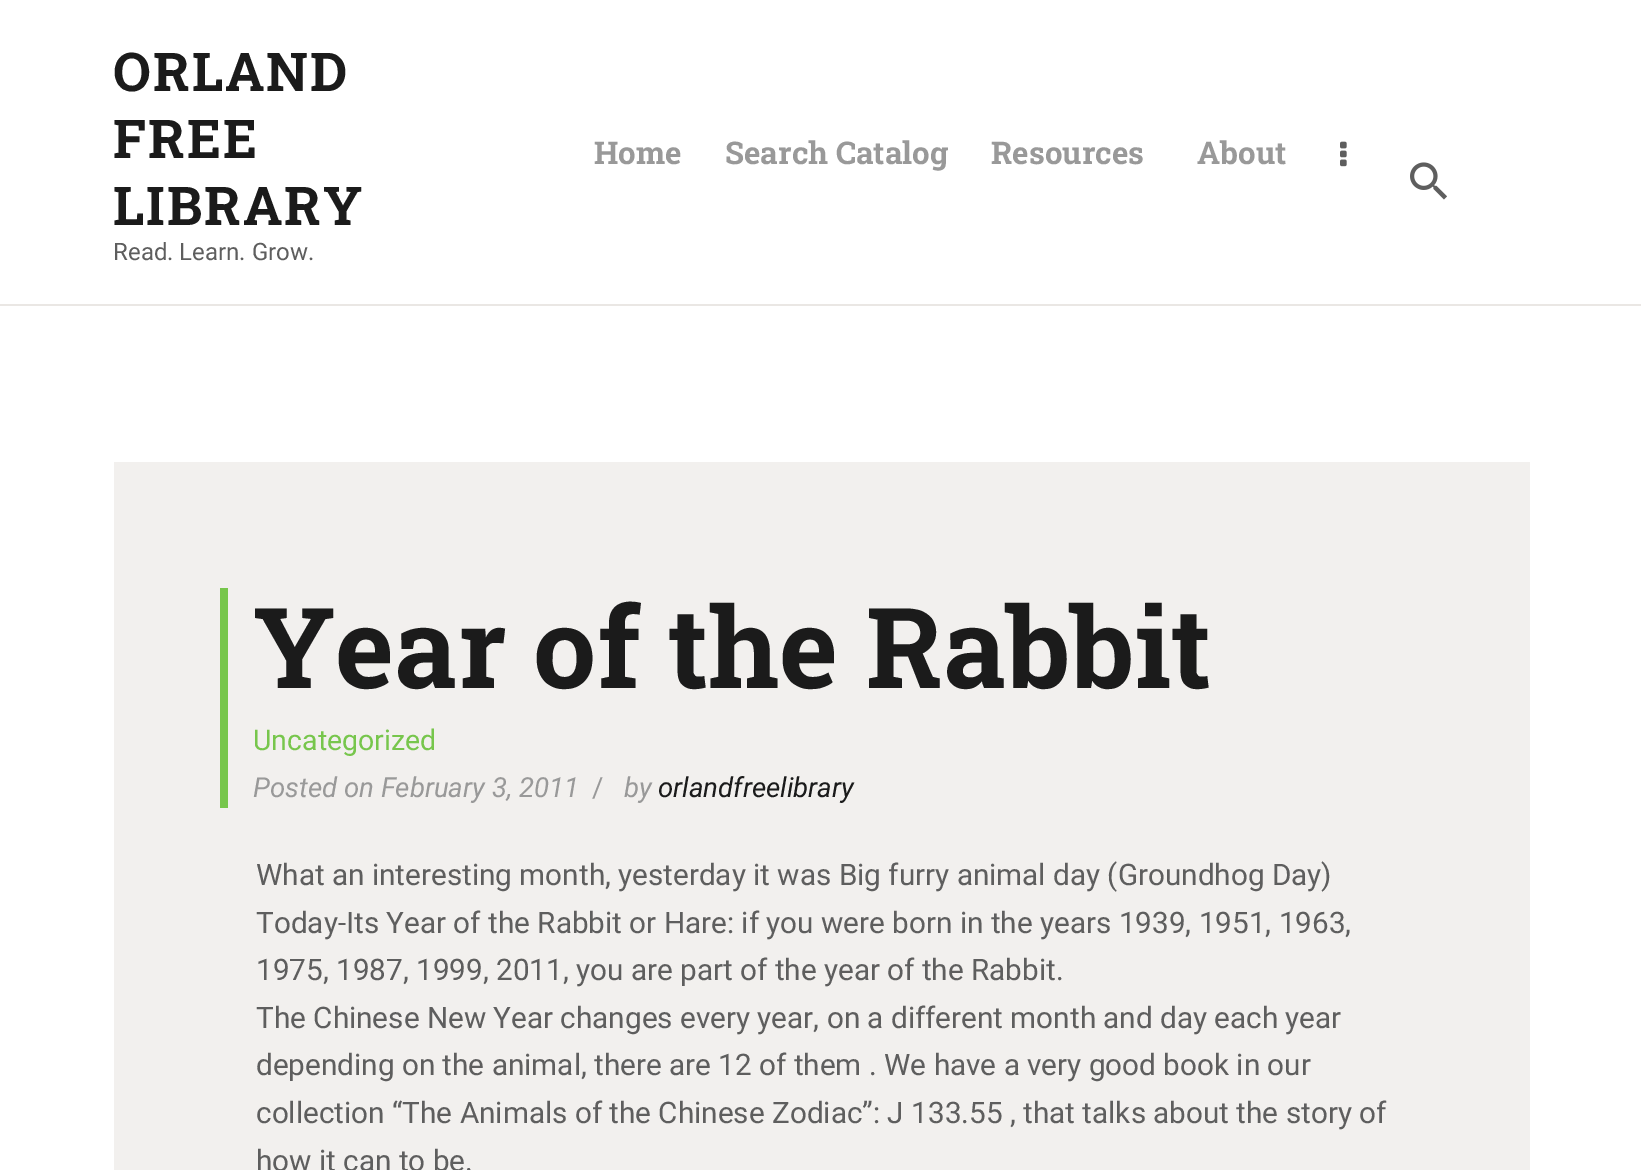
%!PS
<< /PageSize [1641 1170] >> setpagedevice
/rgb { dup -16 bitshift 255 div exch dup -8 bitshift 255 and 255 div exch 255 and 255 div setrgbcolor } def
/font { [ exch dup neg 0 0 3 -1 roll 0 0 ] selectfont } def
/text { moveto show } def
/picture { 5 dict begin { /h /w /y /x /name } { exch def } forall
  gsave x y translate w h scale
  w h 8 [w 0 0 h 0 0] name (r) file false 3 colorimage grestore end } def
0 1170 translate 1 -1 scale
4 setmiterlimit
/s1 { /Roboto-Regular 24 font 16#5E5E5E rgb } def
/s2 { /RobotoSlab-Bold 31.25 font 16#999999 rgb } def
/s3 { /RobotoSlab-Bold 112 font 16#1B1B1B rgb } def
/s4 { /Roboto-Regular 28.5 font 16#77C64C rgb } def
/s5 { /Roboto-Italic 27.6 font 16#999999 rgb } def
/s6 { /Roboto-Regular 27.6 font 16#999999 rgb } def
/s7 { /Roboto-Italic 27.6 font 16#1B1B1B rgb } def
/s8 { /Roboto-Regular 29.7 font 16#5E5E5E rgb } def
16#FFFFFF rgb
0 0 1641 1170 rectfill
16#EAE7E4 rgb
0 304 1641 2 rectfill
/RobotoSlab-Bold 53.5 font
16#1B1B1B rgb
113 91 moveto 2 0 (ORLAND) ashow
113 158 moveto 2 0 (FREE) ashow
113 225 moveto 2 0 (LIBRARY) ashow
s1
(Read. Learn. Grow.) 113 260 text
s2
(Home) 594 164 text
(Search Catalog) 725 164 text
(Resources) 991 164 text
(About) 1197 164 text
(pic1.raw) 1340 141 7 26 picture
(pic2.raw) 1410 162 37 38 picture
16#F2F0EE rgb
114 462 1416 708 rectfill
16#77C64C rgb
220 588 8 220 rectfill
s3
(Year of the Rabbit) 253 688 text
s4
(Uncategorized) 253 750 text
s5
(Posted on February 3, 2011) 253 797 text
s6
(/) 592 797 text
s5
(by) 624 797 text
s7
(orlandfreelibrary) 658 797 text
s8
(What an interesting month, yesterday it was Big furry animal day \(Groundhog Day\)) 256 885 text
(Today-Its Year of the Rabbit or Hare: if you were born in the years 1939, 1951, 1963,) 256 933 text
(1975, 1987, 1999, 2011, you are part of the year of the Rabbit.) 256 980 text
(The Chinese New Year changes every year, on a different month and day each year) 256 1028 text
(depending on the animal, there are 12 of them . We have a very good book in our) 256 1075 text
(collection “The Animals of the Chinese Zodiac”: J 133.55 , that talks about the story of) 256 1123 text
(how it can to be.) 256 1171 text
showpage
